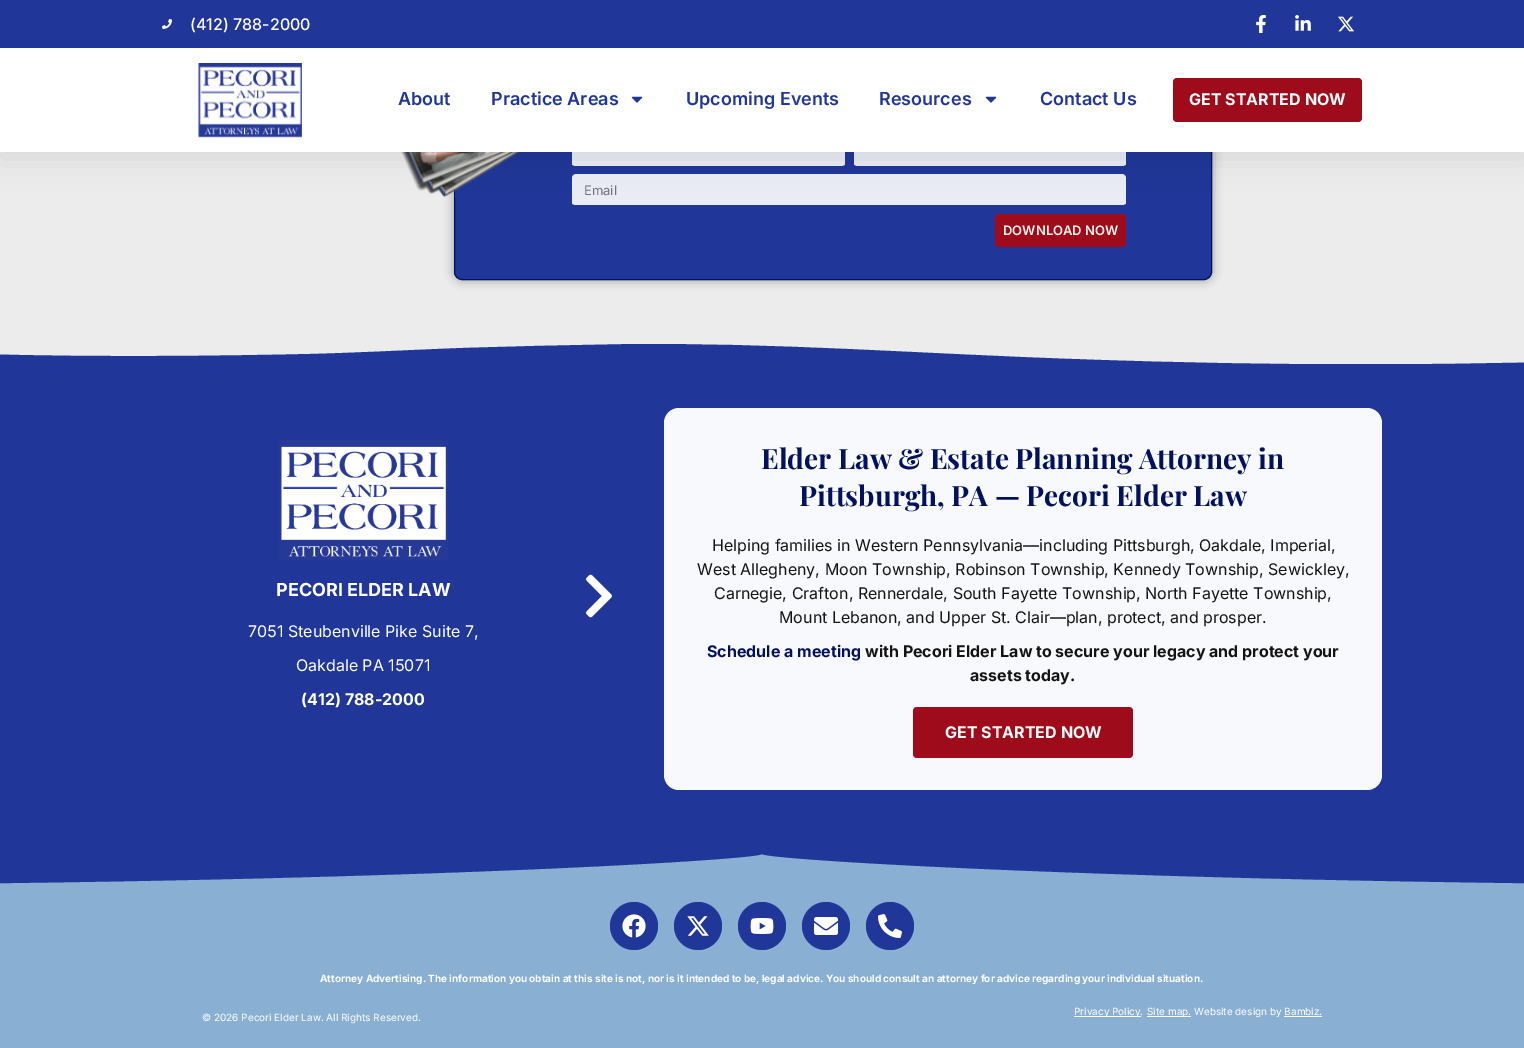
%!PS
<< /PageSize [1524 1048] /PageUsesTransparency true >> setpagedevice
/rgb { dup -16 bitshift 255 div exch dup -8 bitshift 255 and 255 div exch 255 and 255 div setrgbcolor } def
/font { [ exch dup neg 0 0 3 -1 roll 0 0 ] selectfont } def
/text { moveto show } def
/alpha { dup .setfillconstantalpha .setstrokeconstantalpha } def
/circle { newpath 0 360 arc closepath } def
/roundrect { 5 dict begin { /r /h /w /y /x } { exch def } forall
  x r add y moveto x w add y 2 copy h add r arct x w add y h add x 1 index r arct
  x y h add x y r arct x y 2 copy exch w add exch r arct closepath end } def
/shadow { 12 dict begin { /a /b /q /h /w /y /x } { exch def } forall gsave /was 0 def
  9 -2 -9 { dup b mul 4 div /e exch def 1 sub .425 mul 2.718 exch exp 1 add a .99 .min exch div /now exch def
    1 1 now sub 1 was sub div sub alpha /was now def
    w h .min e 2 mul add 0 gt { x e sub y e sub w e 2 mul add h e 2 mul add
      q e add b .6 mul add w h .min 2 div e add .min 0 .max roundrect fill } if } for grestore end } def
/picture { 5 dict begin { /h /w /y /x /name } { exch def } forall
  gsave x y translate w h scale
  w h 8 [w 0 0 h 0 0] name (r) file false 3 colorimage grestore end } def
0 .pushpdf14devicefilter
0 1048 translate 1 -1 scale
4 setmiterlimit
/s1 { /Inter-Medium 16 font 16#FFFFFF rgb } def
/s2 { /Inter-SemiBold 18 font 16#203698 rgb } def
/s3 { /Inter-Bold 16 font 16#FFFFFF rgb } def
/s4 { /Inter-Regular 13 font 16#707278 rgb } def
/s5 { /Inter-SemiBold 13 font 16#FFF7ED rgb } def
/s6 { /Inter-Bold 18 font 16#FFFFFF rgb } def
/s7 { /Inter-Regular 16 font 16#FFFFFF rgb } def
/s8 { /PlayfairDisplay-Bold 28 font 16#00115E rgb } def
/s9 { /Inter-Regular 16 font 16#131313 rgb } def
/s10 { /Inter-Bold 16 font 16#00115E rgb } def
/s11 { /Inter-Bold 16 font 16#131313 rgb } def
/s12 { /Inter-Bold 10 font 16#FFFFFF rgb } def
/s13 { /Inter-Regular 10 font 16#FFFFFF rgb } def
16#ECECEC rgb
0 0 1524 1048 rectfill
16#000000 rgb
454 -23 758 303 8 5 0.37 shadow
16#203698 rgb
454.5 -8.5 757 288 7.5 roundrect gsave fill grestore
16#00115E rgb
stroke
(pic7.raw) 401 152 120 46 picture
16#E9EBF5 rgb
576 135 moveto 841 135 lineto 843 135 845 137 845 139 curveto 845 164 lineto 845 165 843 166 841 166 curveto 576 166 lineto 574 166 572 165 572 164 curveto 572 139 lineto 572 137 574 135 576 135 curveto closepath fill
858 135 moveto 1122 135 lineto 1124 135 1126 137 1126 139 curveto 1126 164 lineto 1126 165 1124 166 1122 166 curveto 858 166 lineto 856 166 854 165 854 164 curveto 854 139 lineto 854 137 856 135 858 135 curveto closepath fill
576 174 moveto 1122 174 lineto 1124 174 1126 176 1126 178 curveto 1126 203 lineto 1126 204 1124 205 1122 205 curveto 576 205 lineto 574 205 572 204 572 203 curveto 572 178 lineto 572 176 574 174 576 174 curveto closepath fill
16#000000 rgb
0 5 1524 152 0 15 0.1 shadow
16#203698 rgb
0 0 1524 48 rectfill
(pic1.raw) 162 19 10 10 picture
s1
(\(412\) 788-2000) 190 30 text
(pic2.raw) 1256 15 10 18 picture
(pic3.raw) 1295 15 16 16 picture
(pic4.raw) 1338 16 16 16 picture
0 48 1524 104 rectfill
(pic5.raw) 198 63 104 75 picture
s2
(About) 398 105 text
(Practice Areas) 491 105 text
(pic6.raw) 631 96 12 7 picture
(Upcoming Events) 686 105 text
(Resources) 879 105 text
(pic6.raw) 985 96 12 7 picture
(Contact Us) 1040 105 text
16#9E0C1C rgb
1173 78 189 44 4 roundrect fill
s3
(GET STARTED NOW) 1189 105 text
s4
(Email) 584 195 text
16#9E0C1C rgb
995 214 131 33 4 roundrect fill
s5
(DOWNLOAD NOW) 1003 235 text
16#203698 rgb
0 344 1524 509 rectfill
gsave
0 343 1524 21 rectclip
16#ECECEC rgb
621 344 moveto 774 342 927 354 1080 359 curveto 1274 366 1468 366 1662 358 curveto 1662 343 lineto -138 343 lineto -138 349 lineto 7 357 153 357 298 354 curveto 351 353 403 350 456 348 curveto 511 346 566 345 621 344 curveto closepath fill
grestore
(pic8.raw) 279 440 169 120 picture
s6
(PECORI ELDER LAW) 276 596 text
s7
(7051 Steubenville Pike Suite 7,) 248 637 text
(Oakdale PA 15071) 296 671 text
s3
(\(412\) 788-2000) 301 705 text
(pic9.raw) 586 574 26 44 picture
16#F8F9FC rgb
664 408 718 382 15 roundrect fill
s8
(Elder Law & Estate Planning Attorney in) 761 469 text
(Pittsburgh, PA — Pecori Elder Law) 799 506 text
s9
(Helping families in Western Pennsylvania—including Pittsburgh, Oakdale, Imperial,) 712 551 text
(West Allegheny, Moon Township, Robinson Township, Kennedy Township, Sewickley,) 697 575 text
(Carnegie, Crafton, Rennerdale, South Fayette Township, North Fayette Township,) 714 599 text
(Mount Lebanon, and Upper St. Clair—plan, protect, and prosper.) 779 623 text
s10
(Schedule a meeting) 707 657 text
s11
(with Pecori Elder Law to secure your legacy and protect your) 865 657 text
(assets today.) 970 681 text
16#9E0C1C rgb
913 707 220 51 4 roundrect fill
s3
(GET STARTED NOW) 945 738 text
16#89AFD3 rgb
0 854 1524 194 rectfill
16#203698 rgb
-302 885 moveto 347 885 759 860 762 854 curveto 765 860 1177 885 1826 885 curveto 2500 885 lineto 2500 853 lineto -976 853 lineto -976 885 lineto closepath fill
634 926 24 circle fill
(pic10.raw) 622 914 24 24 picture
698 926 24 circle fill
(pic11.raw) 687 916 22 20 picture
762 926 24 circle fill
(pic12.raw) 750 918 24 16 picture
826 926 24 circle fill
(pic13.raw) 814 917 24 18 picture
890 926 24 circle fill
(pic14.raw) 878 914 24 24 picture
s12
(Attorney Advertising. The information you obtain at this site is not, nor is it intended to be, legal advice. You should consult an attorney for advice regarding your individual situation.) 320 982 text
s13
(© 2026 Pecori Elder Law. All Rights Reserved.) 202 1021 text
1074 1016 67 1 rectfill
(Privacy Policy.) 1074 1015 text
1147 1016 44 1 rectfill
(Site map. Website design by Bambiz.) 1147 1015 text
1284 1016 38 1 rectfill
.poppdf14devicefilter showpage
